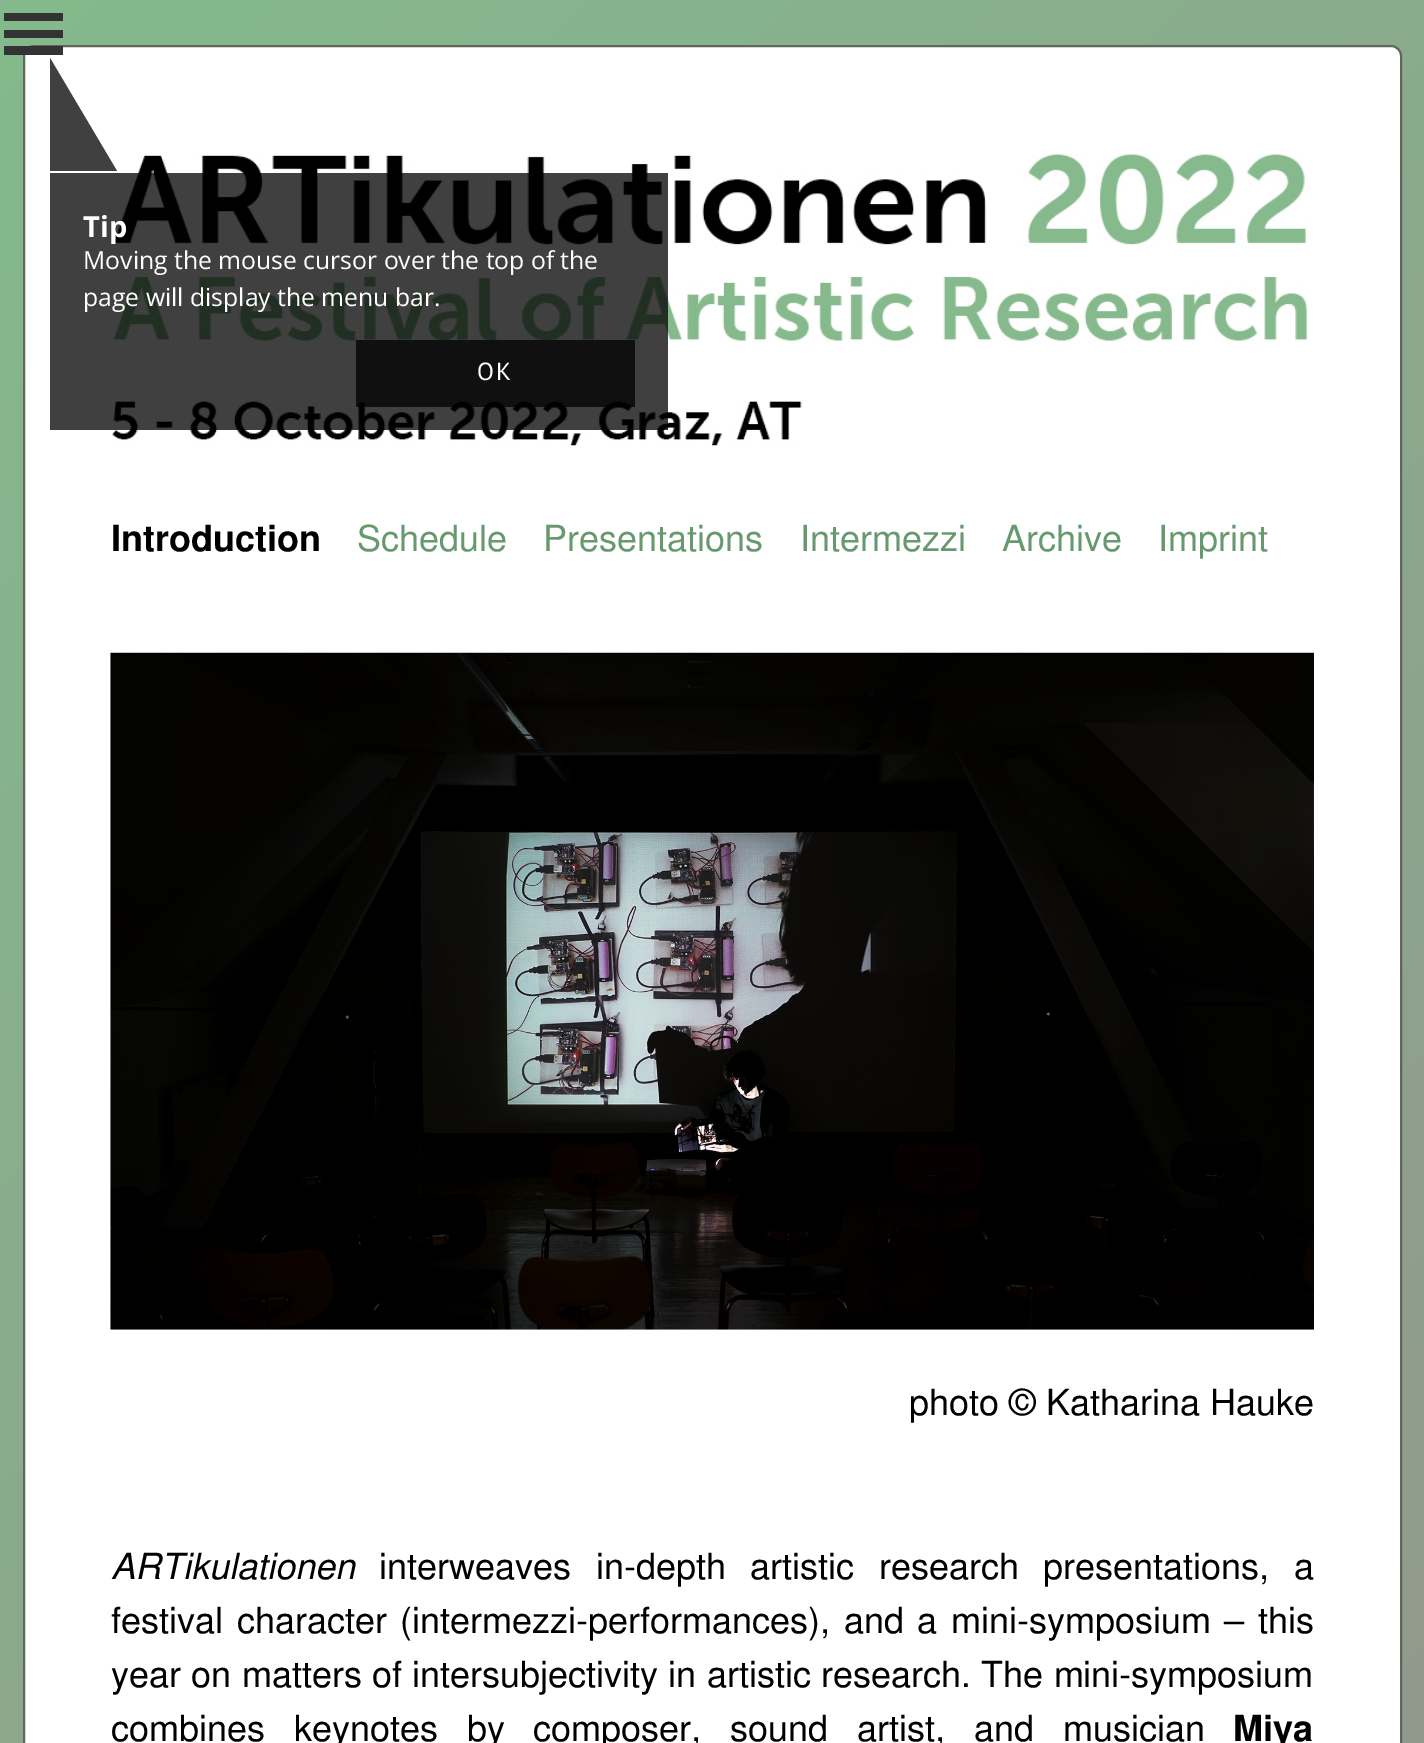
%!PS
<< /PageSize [1424 1743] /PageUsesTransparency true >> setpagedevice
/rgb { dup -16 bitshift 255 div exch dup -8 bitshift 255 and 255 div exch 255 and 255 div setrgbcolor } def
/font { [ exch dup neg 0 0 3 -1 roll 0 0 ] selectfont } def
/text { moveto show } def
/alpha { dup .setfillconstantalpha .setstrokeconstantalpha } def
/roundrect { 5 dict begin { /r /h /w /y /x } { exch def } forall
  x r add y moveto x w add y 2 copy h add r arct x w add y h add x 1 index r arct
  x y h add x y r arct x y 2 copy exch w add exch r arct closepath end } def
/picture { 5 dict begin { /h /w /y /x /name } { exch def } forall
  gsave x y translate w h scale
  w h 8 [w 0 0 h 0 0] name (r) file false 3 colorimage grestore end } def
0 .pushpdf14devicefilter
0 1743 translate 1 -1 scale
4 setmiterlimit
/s1 { /OpenSans-Bold 29 font 16#FFFFFF rgb } def
/s2 { /OpenSans-Regular 24.75 font 16#FFFFFF rgb } def
/s3 { /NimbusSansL-Bold 36 font 16#000000 rgb } def
/s4 { /NimbusSansL-Regular 36 font 16#67996E rgb } def
/s5 { /NimbusSansL-Regular 36 font 16#000000 rgb } def
/s6 { /NimbusSansL-Italic 36 font 16#000000 rgb } def
16#FFFFFF rgb
0 0 1424 1743 rectfill
gsave 0 0 moveto 1424 0 lineto 1424 1743 lineto 0 1743 lineto closepath clip newpath
<< /ShadingType 2 /ColorSpace /DeviceRGB /Coords [-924 924 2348 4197] /Extend [true true] /Function << /FunctionType 2 /Domain [0 1] /C0 [0.518 0.729 0.549] /C1 [0.624 0.471 0.549] /N 1 >> >> shfill grestore
16#333333 rgb
4 13 59 8 rectfill
4 30 59 8 rectfill
16#FFFFFF rgb
24 46 1377 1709 10 roundrect gsave fill grestore
16#61665D rgb
2 setlinewidth
stroke
16#333333 rgb
4 46 59 9 rectfill
(pic1.raw) 112 154 1196 292 picture
0.75 alpha
16#000000 rgb
50 173 618 257 rectfill
1 alpha
16#404040 rgb
117 171 moveto 50 171 lineto 50 58 lineto closepath fill
s1
(Tip) 83 237 text
s2
(Moving the mouse cursor over the top of the) 83 269 text
(page will display the menu bar.) 83 306 text
0.75 alpha
16#000000 rgb
356 340 279 67 rectfill
/PTSans-Regular 24.75 font
1 alpha
16#FFFFFF rgb
477 380 moveto 2 0 (OK) ashow
s3
(Introduction) 111 551 text
s4
(Schedule) 357 551 text
(Presentations) 543 551 text
(Intermezzi) 800 551 text
(Archive) 1002 551 text
(Imprint) 1158 551 text
(pic2.raw) 110 652 1204 678 picture
s5
(photo © Katharina Hauke) 909 1415 text
s6
(ARTikulationen) 111 1579 text
/NimbusSansL-Regular 36 font
379 1579 moveto 14.5 0 32 (interweaves in-depth artistic research presentations, a) widthshow
111 1633 moveto 3.5 0 32 (festival character \(intermezzi-performances\), and a mini-symposium – this) widthshow
111 1687 moveto 0.25 0 32 (year on matters of intersubjectivity in artistic research. The mini-symposium) widthshow
111 1741 moveto 18.75 0 32 (combines keynotes by composer, sound artist, and musician) widthshow
s3
(Miya) 1233 1741 text
.poppdf14devicefilter showpage
